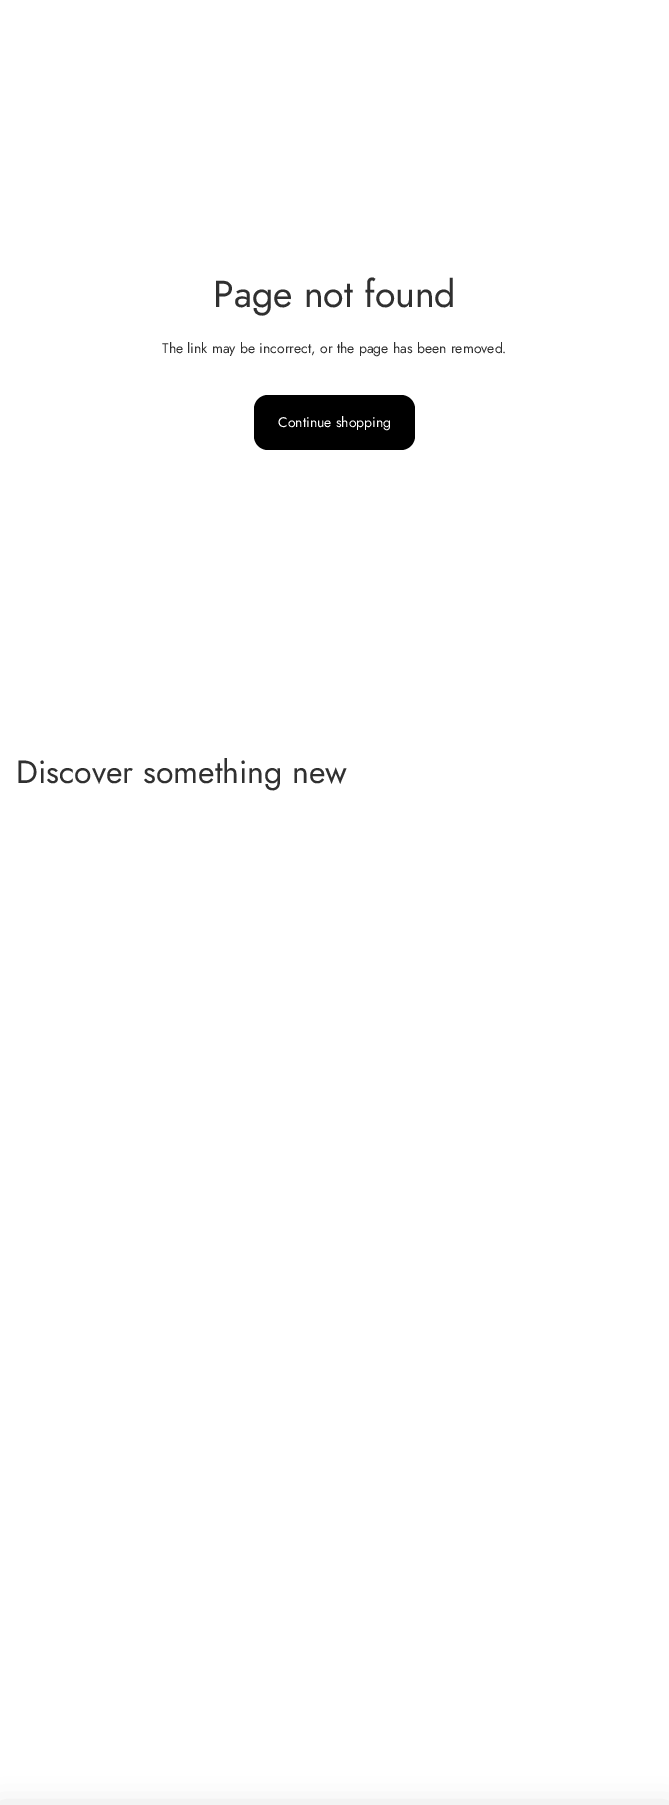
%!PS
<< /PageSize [669 1805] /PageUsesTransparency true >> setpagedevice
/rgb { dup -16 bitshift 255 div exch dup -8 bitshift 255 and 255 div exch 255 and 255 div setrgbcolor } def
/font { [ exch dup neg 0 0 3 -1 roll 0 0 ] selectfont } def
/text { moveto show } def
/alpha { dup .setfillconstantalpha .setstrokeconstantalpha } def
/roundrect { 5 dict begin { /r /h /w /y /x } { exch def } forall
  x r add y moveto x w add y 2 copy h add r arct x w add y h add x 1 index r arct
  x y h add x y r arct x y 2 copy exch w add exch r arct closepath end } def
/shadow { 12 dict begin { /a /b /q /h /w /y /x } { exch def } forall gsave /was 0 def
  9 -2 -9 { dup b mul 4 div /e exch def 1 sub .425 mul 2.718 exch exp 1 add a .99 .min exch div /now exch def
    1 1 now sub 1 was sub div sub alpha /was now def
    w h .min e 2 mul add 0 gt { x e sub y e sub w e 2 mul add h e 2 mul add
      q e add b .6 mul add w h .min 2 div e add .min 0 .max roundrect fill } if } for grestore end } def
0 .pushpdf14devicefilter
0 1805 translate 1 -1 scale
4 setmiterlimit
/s1 { /Jost-Regular 37.5 font 16#303030 rgb } def
/s2 { /Jost-Regular 14 font 16#303030 rgb } def
/s3 { /Jost-Regular 14 font 16#FFFFFF rgb } def
/s4 { /Jost-Regular 32 font 16#303030 rgb } def
16#FFFFFF rgb
0 0 669 1805 rectfill
s1
(Page not found) 213 307 text
s2
(The link may be incorrect, or the page has been removed.) 162 353 text
16#000000 rgb
254 395 161 55 14 roundrect fill
s3
(Continue shopping) 278 427 text
s4
(Discover something new) 16 783 text
16#000000 rgb
0 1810 669 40 0 15 0.15 shadow
.poppdf14devicefilter showpage
